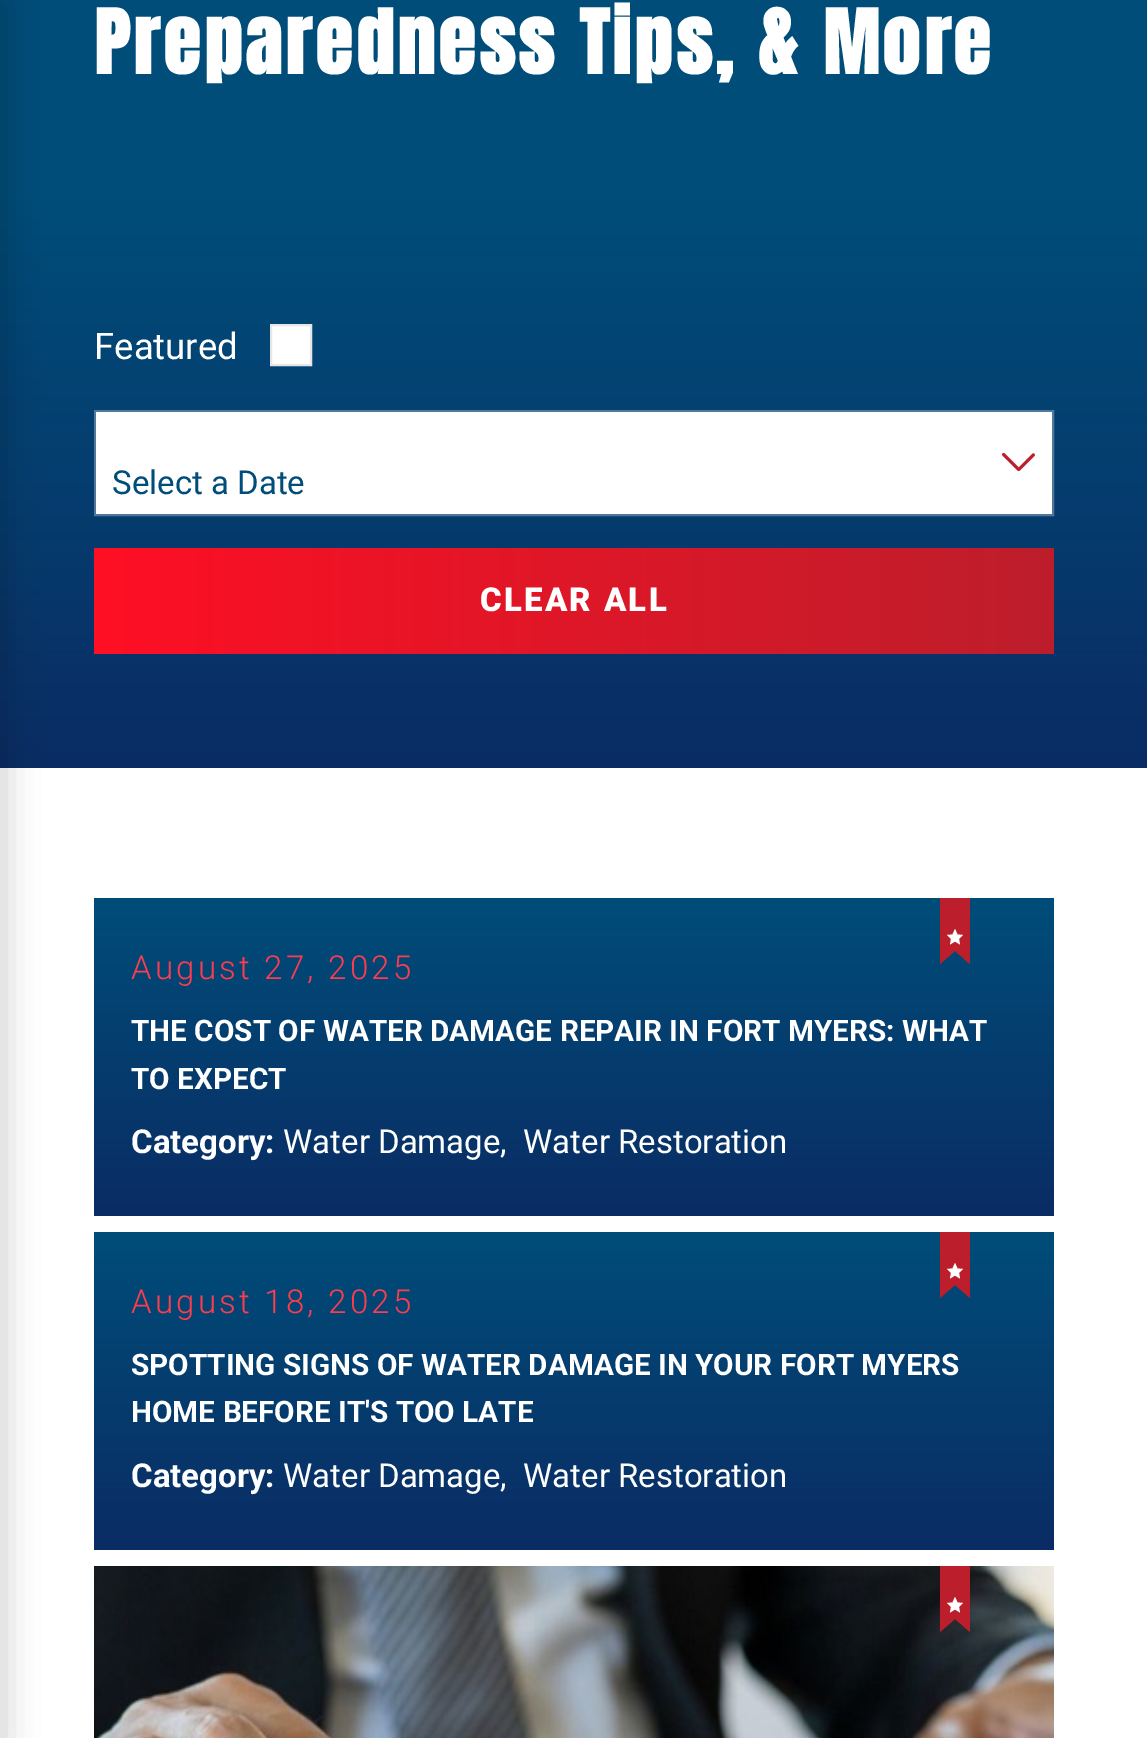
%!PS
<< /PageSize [1147 1738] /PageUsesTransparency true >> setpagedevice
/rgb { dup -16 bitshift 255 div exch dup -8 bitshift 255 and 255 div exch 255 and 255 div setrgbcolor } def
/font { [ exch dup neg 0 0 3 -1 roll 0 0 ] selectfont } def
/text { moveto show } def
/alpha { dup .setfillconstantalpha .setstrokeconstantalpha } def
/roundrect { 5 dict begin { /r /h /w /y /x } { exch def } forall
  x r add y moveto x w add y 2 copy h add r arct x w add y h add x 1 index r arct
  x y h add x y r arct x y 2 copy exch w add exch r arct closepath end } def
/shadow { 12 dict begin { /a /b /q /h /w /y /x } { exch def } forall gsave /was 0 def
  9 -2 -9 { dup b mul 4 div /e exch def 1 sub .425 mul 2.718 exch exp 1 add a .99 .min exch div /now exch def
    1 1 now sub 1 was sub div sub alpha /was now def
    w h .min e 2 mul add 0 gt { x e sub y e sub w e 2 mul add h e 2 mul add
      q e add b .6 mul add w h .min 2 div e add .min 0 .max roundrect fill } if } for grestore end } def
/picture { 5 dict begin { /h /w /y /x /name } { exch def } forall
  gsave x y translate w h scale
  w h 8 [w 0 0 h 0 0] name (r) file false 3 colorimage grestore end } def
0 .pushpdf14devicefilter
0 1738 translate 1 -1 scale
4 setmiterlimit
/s1 { /Roboto-Regular 36.5 font 16#FFFFFF rgb } def
/s2 { /Roboto-Regular 33 font 16#004D79 rgb } def
/s3 { /Roboto-Bold 29.7 font 16#FFFFFF rgb } def
/s4 { /Roboto-Bold 33 font 16#FFFFFF rgb } def
/s5 { /Roboto-Regular 33 font 16#FFFFFF rgb } def
16#FFFFFF rgb
0 0 1147 1738 rectfill
16#004D79 rgb
0 0 1147 200 rectfill
gsave 0 200 moveto 1147 200 lineto 1147 768 lineto 0 768 lineto closepath clip newpath
<< /ShadingType 2 /ColorSpace /DeviceRGB /Coords [574 200 574 768] /Extend [true true] /Function << /FunctionType 2 /Domain [0 1] /C0 [0 0.302 0.475] /C1 [0.039 0.173 0.392] /N 1 >> >> shfill grestore
16#000000 rgb
-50 4 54 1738 0 16.5 0.2 shadow
/Anton-Bold 75.25 font
16#FFFFFF rgb
94 74 moveto 3.75 0 (Preparedness Tips, & More) ashow
s1
(Featured) 94 359 text
271 325 moveto 311 325 lineto 311 365 lineto 271 365 lineto closepath gsave fill grestore
16#E6E6E6 rgb
2 setlinewidth
stroke
16#FFFFFF rgb
96 412 956 102 rectfill
0.3 alpha
95 411 958 104 rectstroke
1 alpha
(pic1.raw) 1002 452 33 20 picture
s2
(Select a Date) 112 494 text
gsave 94 548 moveto 1054 548 lineto 1054 654 lineto 94 654 lineto closepath clip newpath
<< /ShadingType 2 /ColorSpace /DeviceRGB /Coords [94 601 1054 601] /Extend [true true] /Function << /FunctionType 2 /Domain [0 1] /C0 [1 0.059 0.141] /C1 [0.741 0.118 0.173] /N 1 >> >> shfill grestore
/Roboto-Black 33 font
16#FFFFFF rgb
480 611 moveto 2.25 0 (CLEAR ALL) ashow
gsave 94 898 moveto 1054 898 lineto 1054 1216 lineto 94 1216 lineto closepath clip newpath
<< /ShadingType 2 /ColorSpace /DeviceRGB /Coords [574 898 574 1216] /Extend [true true] /Function << /FunctionType 2 /Domain [0 1] /C0 [0 0.302 0.475] /C1 [0.039 0.173 0.392] /N 1 >> >> shfill grestore
16#BD1E2C rgb
940 898 moveto 940 964 lineto 955 951 lineto 970 964 lineto 970 898 lineto closepath fill
16#FFFFFF rgb
960 944.5 moveto 955 941.5 lineto 950 944.5 lineto 951 939 lineto 947 935 lineto 952.5 934.5 lineto 955 929 lineto 957.5 934.5 lineto 963 935 lineto 959 939 lineto closepath fill
/Roboto-Light 33 font
16#FF3C4D rgb
131 979 moveto 3.25 0 (August 27, 2025) ashow
s3
(THE COST OF WATER DAMAGE REPAIR IN FORT MYERS: WHAT) 131 1041 text
(TO EXPECT) 131 1089 text
s4
(Category:) 131 1153 text
s5
(Water Damage,) 283 1153 text
(Water Restoration) 523 1153 text
gsave 94 1232 moveto 1054 1232 lineto 1054 1550 lineto 94 1550 lineto closepath clip newpath
<< /ShadingType 2 /ColorSpace /DeviceRGB /Coords [574 1232 574 1550] /Extend [true true] /Function << /FunctionType 2 /Domain [0 1] /C0 [0 0.302 0.475] /C1 [0.039 0.173 0.392] /N 1 >> >> shfill grestore
16#BD1E2C rgb
940 1232 moveto 940 1298 lineto 955 1285 lineto 970 1298 lineto 970 1232 lineto closepath fill
16#FFFFFF rgb
960 1278.5 moveto 955 1275.5 lineto 950 1278.5 lineto 951 1273 lineto 947 1269 lineto 952.5 1268.5 lineto 955 1263 lineto 957.5 1268.5 lineto 963 1269 lineto 959 1273 lineto closepath fill
/Roboto-Light 33 font
16#FF3C4D rgb
131 1313 moveto 3.25 0 (August 18, 2025) ashow
s3
(SPOTTING SIGNS OF WATER DAMAGE IN YOUR FORT MYERS) 131 1375 text
(HOME BEFORE IT'S TOO LATE) 131 1422 text
s4
(Category:) 131 1487 text
s5
(Water Damage,) 283 1487 text
(Water Restoration) 523 1487 text
(pic2.raw) 94 1566 960 172 picture
16#BD1E2C rgb
940 1566 moveto 940 1632 lineto 955 1619 lineto 970 1632 lineto 970 1566 lineto closepath fill
16#FFFFFF rgb
960 1612.5 moveto 955 1609.5 lineto 950 1612.5 lineto 951 1607 lineto 947 1603 lineto 952.5 1602.5 lineto 955 1597 lineto 957.5 1602.5 lineto 963 1603 lineto 959 1607 lineto closepath fill
.poppdf14devicefilter showpage
